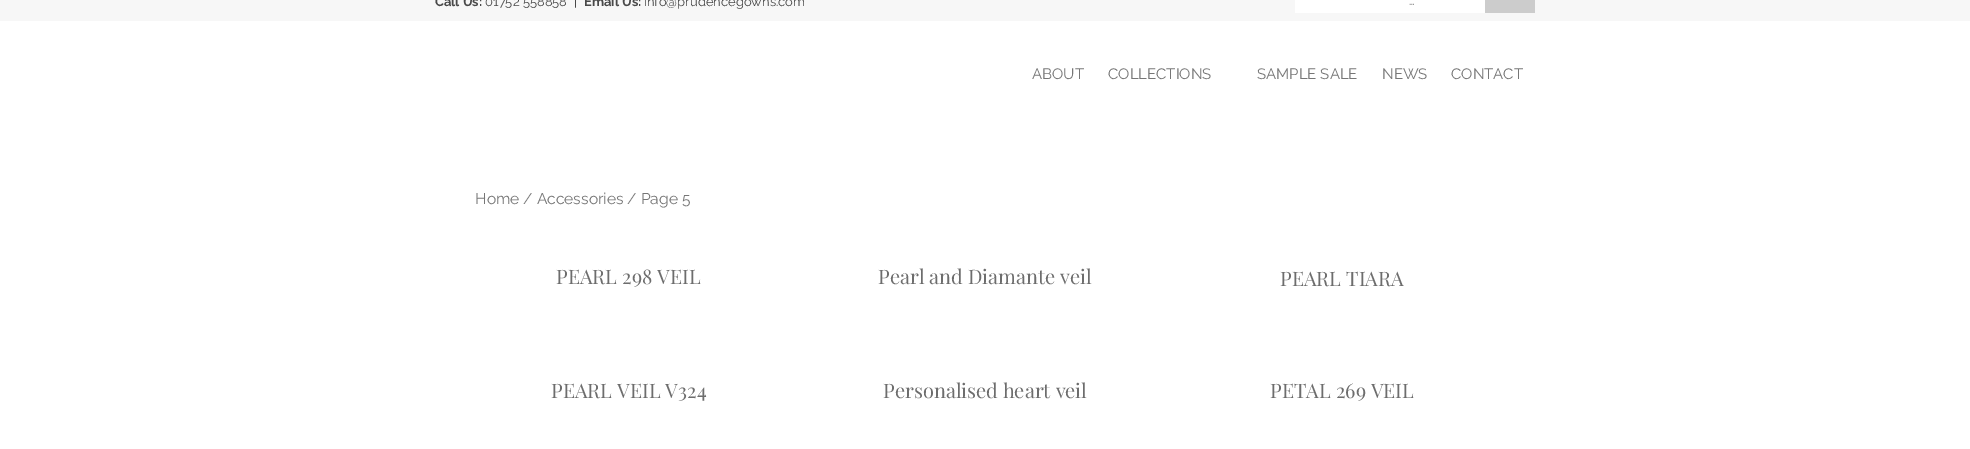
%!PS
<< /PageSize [1970 449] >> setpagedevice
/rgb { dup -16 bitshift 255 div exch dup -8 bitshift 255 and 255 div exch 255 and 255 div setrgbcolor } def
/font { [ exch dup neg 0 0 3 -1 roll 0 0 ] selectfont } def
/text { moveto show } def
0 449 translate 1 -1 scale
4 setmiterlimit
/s1 { /Raleway-Bold 13 font 16#494949 rgb } def
/s2 { /Raleway-Regular 13 font 16#494949 rgb } def
/s3 { /Raleway-Regular 13 font 16#767676 rgb } def
/s4 { /Raleway-Regular 15 font 16#767676 rgb } def
/s5 { /Raleway-Regular 15.6 font 16#767676 rgb } def
/s6 { /PlayfairDisplay-Regular 20 font 16#6D6D6D rgb } def
16#FFFFFF rgb
0 0 1970 449 rectfill
16#F7F7F7 rgb
0 0 1970 21 rectfill
s1
(Call Us:) 435 6 text
s2
(01752 558858  |) 485 6 text
s1
(Email Us:) 584 6 text
s2
(info@prudencegowns.com) 644 6 text
16#FFFFFF rgb
1295 0 190 13 rectfill
s3
(…) 1409 5 text
16#CCCCCC rgb
1485 0 50 13 rectfill
s4
(ABOUT) 1032 79 text
(COLLECTIONS) 1108 79 text
(SAMPLE SALE) 1257 79 text
(NEWS) 1382 79 text
(CONTACT) 1451 79 text
s5
(Home / Accessories / Page 5) 475 204 text
s6
(PEARL 298 VEIL) 556 284 text
(Pearl and Diamante veil) 878 284 text
(PEARL TIARA) 1280 286 text
(PEARL VEIL V324) 551 398 text
(Personalised heart veil) 883 398 text
(PETAL 269 VEIL) 1270 398 text
showpage
